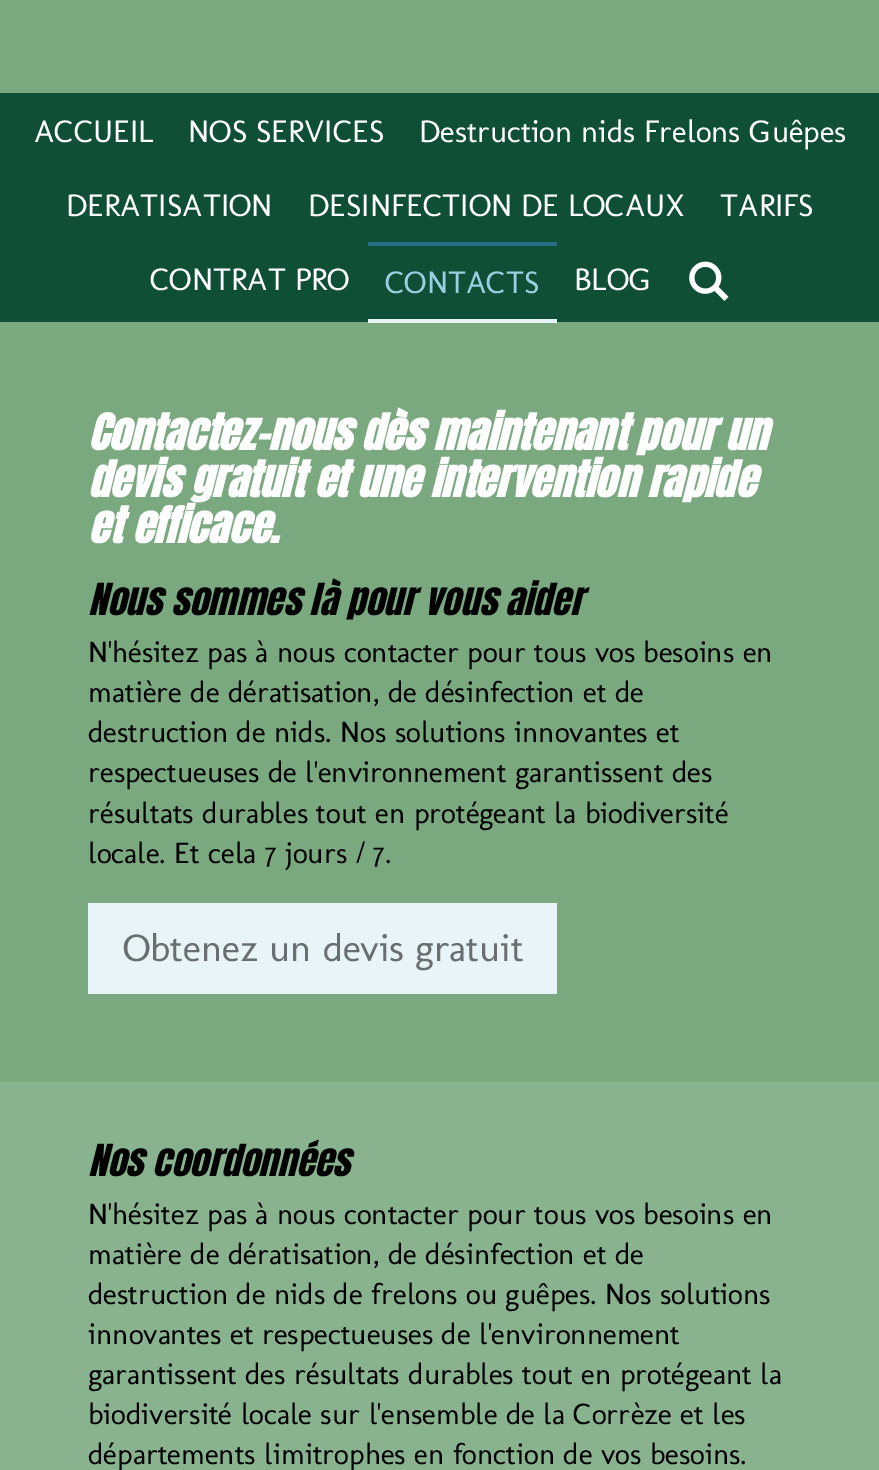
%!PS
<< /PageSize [879 1470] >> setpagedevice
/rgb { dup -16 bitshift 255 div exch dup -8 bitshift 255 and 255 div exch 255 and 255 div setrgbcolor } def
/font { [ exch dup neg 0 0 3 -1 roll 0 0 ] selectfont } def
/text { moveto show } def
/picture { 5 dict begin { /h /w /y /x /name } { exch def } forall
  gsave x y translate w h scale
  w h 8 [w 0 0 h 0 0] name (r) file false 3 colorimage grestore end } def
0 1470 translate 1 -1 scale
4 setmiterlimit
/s1 { /Molengo-Regular 31.5 font 16#FFFFFF rgb } def
/s2 { /Molengo-Regular 31.5 font 16#9ACFE1 rgb } def
/s3 { /Anton-BoldItalic 42.4 font 16#FFFFFF rgb } def
/s4 { /Anton-Italic 37.6 font 16#000000 rgb } def
/s5 { /Molengo-Regular 29.75 font 16#000000 rgb } def
/s6 { /Molengo-Regular 38.75 font 16#696E70 rgb } def
16#7AA980 rgb
0 0 879 1470 rectfill
16#0F4F35 rgb
0 93 879 229 rectfill
s1
(ACCUEIL) 34 142 text
(NOS SERVICES) 188 142 text
(Destruction nids Frelons Guêpes) 419 142 text
(DERATISATION) 66 216 text
(DESINFECTION DE LOCAUX) 308 216 text
(TARIFS) 720 216 text
(CONTRAT PRO) 150 290 text
16#286F87 rgb
368 242 189 4 rectfill
16#E9F4F8 rgb
368 319 189 4 rectfill
s2
(CONTACTS) 385 293 text
s1
(BLOG) 574 290 text
(pic1.raw) 689 261 40 40 picture
s3
(Contactez-nous dès maintenant pour un) 88 450 text
(devis gratuit et une intervention rapide) 88 497 text
(et efficace.) 88 543 text
s4
(Nous sommes là pour vous aider) 88 615 text
s5
(N'hésitez pas à nous contacter pour tous vos besoins en) 88 662 text
(matière de dératisation, de désinfection et de) 88 702 text
(destruction de nids. Nos solutions innovantes et) 88 742 text
(respectueuses de l'environnement garantissent des) 88 782 text
(résultats durables tout en protégeant la biodiversité) 88 823 text
(locale. Et cela 7 jours / 7.) 88 863 text
16#E9F4F8 rgb
88 903 469 91 rectfill
s6
(Obtenez un devis gratuit) 123 961 text
16#89B38F rgb
0 1082 879 388 rectfill
s4
(Nos coordonnées) 88 1176 text
s5
(N'hésitez pas à nous contacter pour tous vos besoins en) 88 1224 text
(matière de dératisation, de désinfection et de) 88 1264 text
(destruction de nids de frelons ou guêpes. Nos solutions) 88 1304 text
(innovantes et respectueuses de l'environnement) 88 1344 text
(garantissent des résultats durables tout en protégeant la) 88 1384 text
(biodiversité locale sur l'ensemble de la Corrèze et les) 88 1424 text
(départements limitrophes en fonction de vos besoins.) 88 1464 text
showpage
